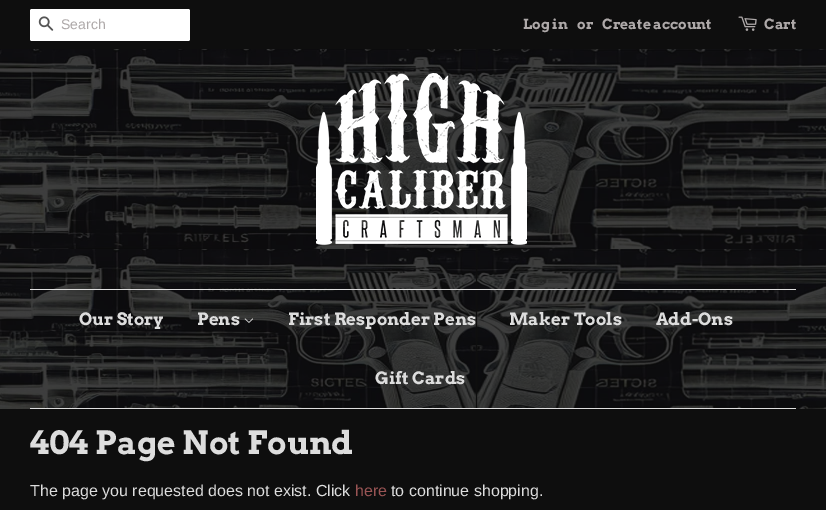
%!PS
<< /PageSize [826 510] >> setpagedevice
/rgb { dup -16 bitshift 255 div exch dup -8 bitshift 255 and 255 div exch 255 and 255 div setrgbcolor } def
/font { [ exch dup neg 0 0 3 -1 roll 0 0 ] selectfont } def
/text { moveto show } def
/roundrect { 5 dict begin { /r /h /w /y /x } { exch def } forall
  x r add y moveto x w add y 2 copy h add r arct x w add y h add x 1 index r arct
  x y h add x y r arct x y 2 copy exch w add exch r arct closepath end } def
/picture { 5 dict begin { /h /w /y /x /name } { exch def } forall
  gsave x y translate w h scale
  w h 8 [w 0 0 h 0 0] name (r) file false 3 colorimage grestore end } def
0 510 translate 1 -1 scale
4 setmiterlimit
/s1 { /LiberationSans-Regular 14 font 16#AEA9A9 rgb } def
/s2 { /Arvo-Bold 14 font 16#AEA9A9 rgb } def
/s3 { /Arvo-Bold 17 font 16#DDDDDD rgb } def
/s4 { /Arvo-Bold 32 font 16#DDDDDD rgb } def
/s5 { /LiberationSans-Regular 16 font 16#DDDDDD rgb } def
/s6 { /LiberationSans-Regular 16 font 16#995454 rgb } def
16#0E0E0E rgb
0 0 826 510 rectfill
16#FFFFFF rgb
30 9 160 32 2 roundrect fill
(pic1.raw) 38 16 16 15 picture
s1
(Search) 61 29 text
s2
(Log in) 523 29 text
(or) 577 29 text
(Create account) 602 29 text
(pic2.raw) 738 16 19 15 picture
(Cart) 764 29 text
(pic3.raw) 0 49 826 360 picture
(pic4.raw) 316 73 211 172 picture
16#DDDDDD rgb
30 289 766 1 rectfill
30 408 766 1 rectfill
s3
(Our Story) 79 325 text
(Pens) 197 325 text
(pic5.raw) 244 318 9 5 picture
(First Responder Pens) 288 325 text
(Maker Tools) 509 325 text
(Add-Ons) 656 325 text
(Gift Cards) 375 384 text
s4
(404 Page Not Found) 30 454 text
s5
(The page you requested does not exist. Click) 30 496 text
s6
(here) 355 496 text
s5
(to continue shopping.) 391 496 text
showpage
